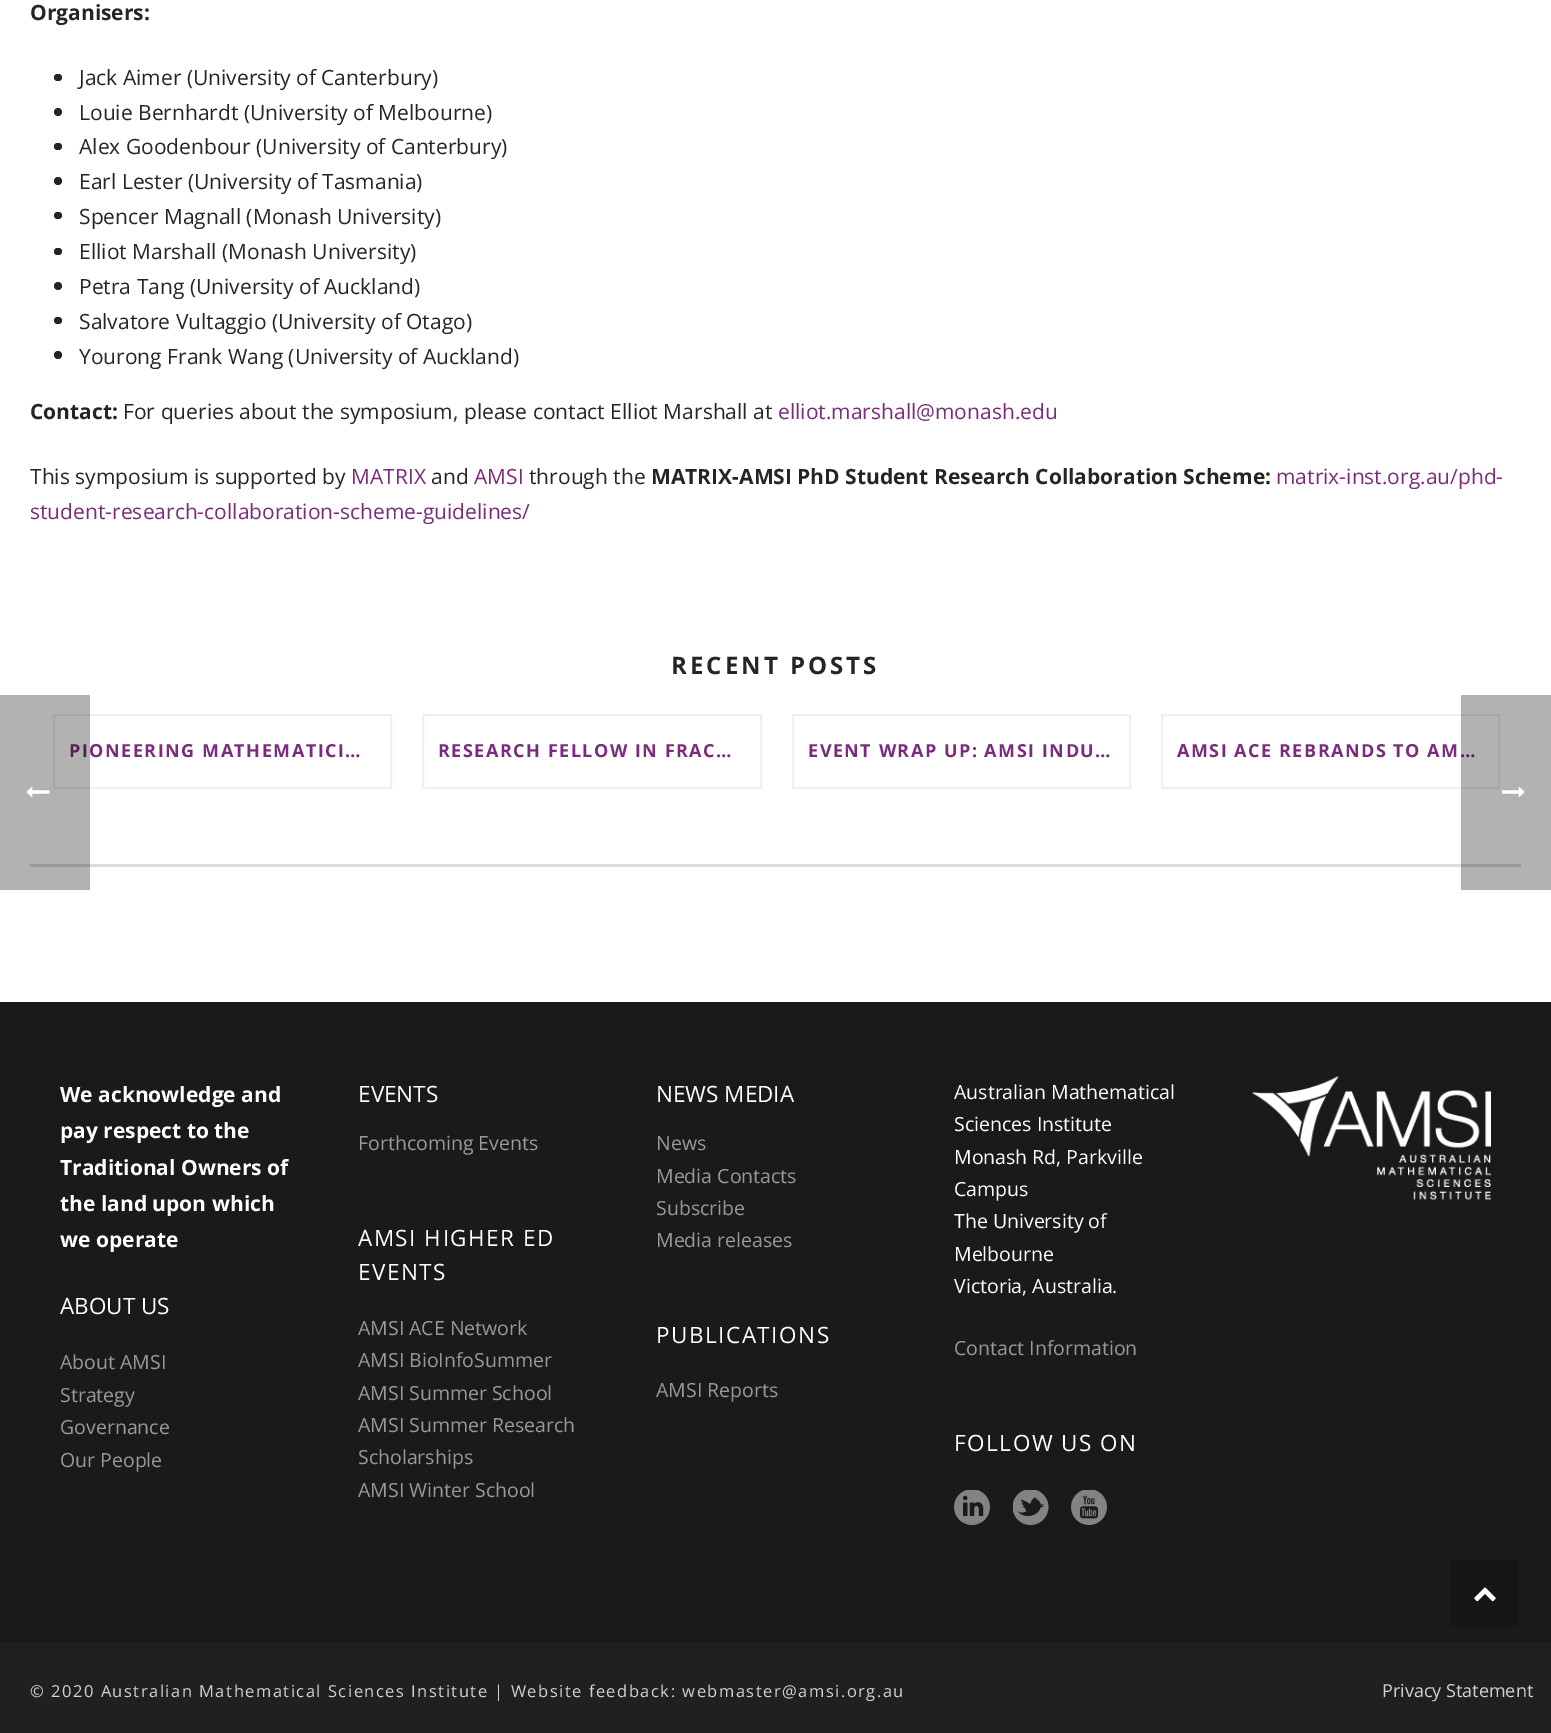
%!PS
<< /PageSize [1551 1733] /PageUsesTransparency true >> setpagedevice
/rgb { dup -16 bitshift 255 div exch dup -8 bitshift 255 and 255 div exch 255 and 255 div setrgbcolor } def
/font { [ exch dup neg 0 0 3 -1 roll 0 0 ] selectfont } def
/text { moveto show } def
/alpha { dup .setfillconstantalpha .setstrokeconstantalpha } def
/circle { newpath 0 360 arc closepath } def
/roundrect { 5 dict begin { /r /h /w /y /x } { exch def } forall
  x r add y moveto x w add y 2 copy h add r arct x w add y h add x 1 index r arct
  x y h add x y r arct x y 2 copy exch w add exch r arct closepath end } def
/picture { 5 dict begin { /h /w /y /x /name } { exch def } forall
  gsave x y translate w h scale
  w h 8 [w 0 0 h 0 0] name (r) file false 3 colorimage grestore end } def
0 .pushpdf14devicefilter
0 1733 translate 1 -1 scale
4 setmiterlimit
/s1 { /OpenSans-Bold 21 font 16#252525 rgb } def
/s2 { /OpenSans-Regular 21 font 16#252525 rgb } def
/s3 { /OpenSans-Regular 21 font 16#7A2B7C rgb } def
/s4 { /OpenSans-Bold 21 font 16#FFFFFF rgb } def
/s5 { /OpenSans-Regular 22.5 font 16#FFFFFF rgb } def
/s6 { /OpenSans-Regular 19.5 font 16#999999 rgb } def
/s7 { /OpenSans-Regular 19.5 font 16#FFFFFF rgb } def
/s8 { /OpenSans-Regular 18 font 16#D2D2D2 rgb } def
16#1A1A1A rgb
0 0 1551 1733 rectfill
16#FFFFFF rgb
0 0 1551 1002 rectfill
s1
(Organisers:) 30 20 text
54 74 8 7 3.5 roundrect fill
s2
(Jack Aimer \(University of Canterbury\)) 79 85 text
58 112 4 circle fill
(Louie Bernhardt \(University of Melbourne\)) 79 120 text
54 143 8 7 3.5 roundrect fill
(Alex Goodenbour \(University of Canterbury\)) 79 154 text
58 181 4 circle fill
(Earl Lester \(University of Tasmania\)) 79 189 text
54 212 8 7 3.5 roundrect fill
(Spencer Magnall \(Monash University\)) 79 224 text
54 248 8 7 3.5 roundrect fill
(Elliot Marshall \(Monash University\)) 79 259 text
58 286 4 circle fill
(Petra Tang \(University of Auckland\)) 79 294 text
54 317 8 7 3.5 roundrect fill
(Salvatore Vultaggio \(University of Otago\)) 79 329 text
58 355 4 circle fill
(Yourong Frank Wang \(University of Auckland\)) 79 364 text
s1
(Contact:) 30 419 text
s2
(For queries about the symposium, please contact Elliot Marshall at) 123 419 text
s3
(elliot.marshall@monash.edu) 778 419 text
s2
(This symposium is supported by) 30 484 text
s3
(MATRIX) 351 484 text
s2
(and) 431 484 text
s3
(AMSI) 474 484 text
s2
(through the) 529 484 text
s1
(MATRIX-AMSI PhD Student Research Collaboration Scheme:) 651 484 text
s3
(matrix-inst.org.au/phd-) 1276 484 text
(student-research-collaboration-scheme-guidelines/) 30 519 text
16#DDDDDD rgb
30 864 1491 3 rectfill
/OpenSans-Bold 24 font
16#252525 rgb
671 674 moveto 3 0 (RECENT POSTS) ashow
16#EFEFEF rgb
2 setlinewidth
54 715 337 73 rectstroke
/OpenSans-Bold 18 font
16#7A2B7C rgb
69 757 moveto 1.5 0 (PIONEERING MATHEMATICI…) ashow
16#EFEFEF rgb
423 715 338 73 rectstroke
16#7A2B7C rgb
438 757 moveto 1.5 0 (RESEARCH FELLOW IN FRAC…) ashow
16#EFEFEF rgb
793 715 337 73 rectstroke
16#7A2B7C rgb
808 757 moveto 1.5 0 (EVENT WRAP UP: AMSI INDU…) ashow
16#EFEFEF rgb
1162 715 337 73 rectstroke
16#7A2B7C rgb
1177 757 moveto 1.5 0 (AMSI ACE REBRANDS TO AM…) ashow
s4
(We acknowledge and) 60 1102 text
(pay respect to the) 60 1138 text
(Traditional Owners of) 60 1175 text
(the land upon which) 60 1211 text
(we operate) 60 1247 text
s5
(ABOUT US) 60 1314 text
s6
(About AMSI) 60 1369 text
(Strategy) 60 1402 text
(Governance) 60 1434 text
(Our People) 60 1467 text
s5
(EVENTS) 358 1102 text
s6
(Forthcoming Events) 358 1150 text
/OpenSans-Regular 22.5 font
16#FFFFFF rgb
358 1246 moveto 1.5 0 (AMSI HIGHER ED) ashow
358 1280 moveto 1.5 0 (EVENTS) ashow
s6
(AMSI ACE Network) 358 1335 text
(AMSI BioInfoSummer) 358 1367 text
(AMSI Summer School) 358 1400 text
(AMSI Summer Research) 358 1432 text
(Scholarships) 358 1464 text
(AMSI Winter School) 358 1497 text
s5
(NEWS MEDIA) 656 1102 text
s6
(News) 656 1150 text
(Media Contacts) 656 1183 text
(Subscribe) 656 1215 text
(Media releases) 656 1247 text
/OpenSans-Regular 22.5 font
16#FFFFFF rgb
656 1343 moveto 1.5 0 (PUBLICATIONS) ashow
s6
(AMSI Reports) 656 1397 text
s7
(Australian Mathematical) 954 1099 text
(Sciences Institute) 954 1131 text
(Monash Rd, Parkville) 954 1164 text
(Campus) 954 1196 text
(The University of) 954 1228 text
(Melbourne) 954 1261 text
(Victoria, Australia.) 954 1293 text
s6
(Contact Information) 954 1355 text
/OpenSans-Regular 22.5 font
16#FFFFFF rgb
954 1451 moveto 1.5 0 (FOLLOW US ON) ashow
(pic1.raw) 954 1490 36 35 picture
(pic2.raw) 1013 1490 36 36 picture
(pic3.raw) 1071 1490 36 35 picture
(pic4.raw) 1252 1076 239 124 picture
16#202020 rgb
0 1643 1551 90 rectfill
/OpenSans-Regular 16.5 font
16#D2D2D2 rgb
30 1697 moveto 1.5 0 (© 2020 Australian Mathematical Sciences Institute | Website feedback: webmaster@amsi.org.au) ashow
s8
(Privacy Statement) 1382 1697 text
0.3 alpha
16#000000 rgb
0 695 90 195 rectfill
1 alpha
(pic5.raw) 26 787 24 10 picture
0.3 alpha
1461 695 90 195 rectfill
1 alpha
(pic6.raw) 1502 787 23 10 picture
16#151515 rgb
1451 1559 67 67 rectfill
(pic7.raw) 1474 1587 22 15 picture
.poppdf14devicefilter showpage
